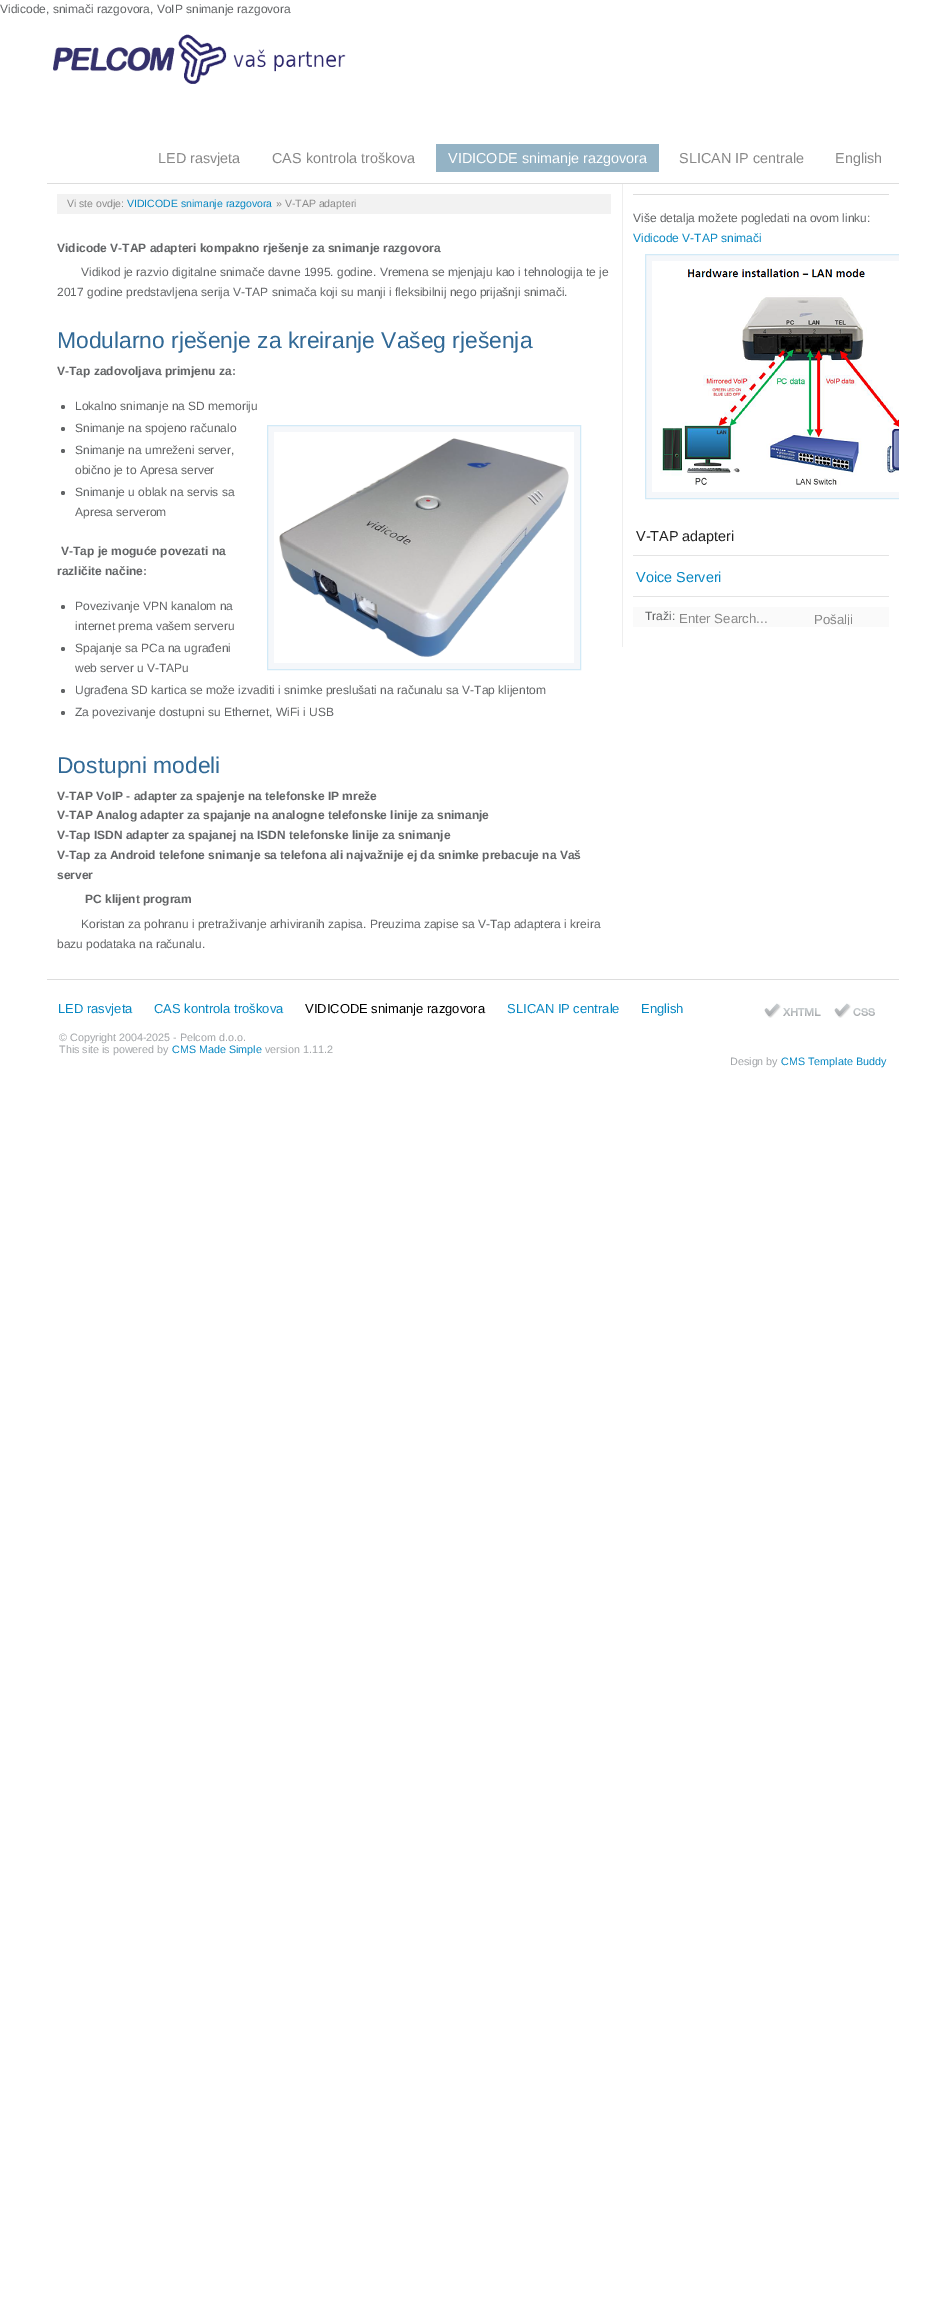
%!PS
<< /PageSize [946 2320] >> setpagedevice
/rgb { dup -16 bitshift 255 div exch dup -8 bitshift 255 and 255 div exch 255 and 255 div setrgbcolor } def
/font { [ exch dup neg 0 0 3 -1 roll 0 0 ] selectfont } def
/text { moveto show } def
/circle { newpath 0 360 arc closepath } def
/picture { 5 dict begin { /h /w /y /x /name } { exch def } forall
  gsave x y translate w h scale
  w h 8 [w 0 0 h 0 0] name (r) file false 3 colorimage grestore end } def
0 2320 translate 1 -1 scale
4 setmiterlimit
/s1 { /LiberationSans-Regular 12 font 16#626466 rgb } def
/s2 { /LiberationSans-Regular 14.4 font 16#888888 rgb } def
/s3 { /LiberationSans-Regular 14.4 font 16#FFFFFF rgb } def
/s4 { /LiberationSans-Regular 10.5 font 16#888888 rgb } def
/s5 { /LiberationSans-Regular 10.5 font 16#0888C3 rgb } def
/s6 { /LiberationSans-Bold 12 font 16#626466 rgb } def
/s7 { /LiberationSans-Regular 22.8 font 16#316996 rgb } def
/s8 { /LiberationSans-Regular 12 font 16#0888C3 rgb } def
/s9 { /LiberationSans-Regular 14.4 font 16#222222 rgb } def
/s10 { /LiberationSans-Regular 14.4 font 16#0888C3 rgb } def
/s11 { /LiberationSans-Regular 13.25 font 16#888888 rgb } def
/s12 { /LiberationSans-Regular 13 font 16#0888C3 rgb } def
/s13 { /LiberationSans-Regular 13 font 16#000000 rgb } def
/s14 { /LiberationSans-Regular 10.75 font 16#A2A5A8 rgb } def
/s15 { /LiberationSans-Regular 10.75 font 16#0888C3 rgb } def
16#FFFFFF rgb
0 0 946 2320 rectfill
s1
(Vidicode, snimači razgovora, VoIP snimanje razgovora) 0 13 text
(pic1.raw) 53 34 293 50 picture
s2
(LED rasvjeta) 158 163 text
(CAS kontrola troškova) 272 163 text
16#94B3C5 rgb
436 144 223 28 rectfill
s3
(VIDICODE snimanje razgovora) 448 163 text
s2
(SLICAN IP centrale) 679 163 text
(English) 835 163 text
16#DDDDDD rgb
47 183 852 1 rectfill
47 979 852 1 rectfill
16#F2F2F2 rgb
57 194 554 20 rectfill
s4
(Vi ste ovdje:) 67 207 text
s5
(VIDICODE snimanje razgovora) 127 207 text
s4
(» V-TAP adapteri) 276 207 text
s6
(Vidicode V-TAP adapteri kompakno rješenje za snimanje razgovora) 57 252 text
s1
(Vidikod je razvio digitalne snimače davne 1995. godine. Vremena se mjenjaju kao i tehnologija te je) 81 276 text
(2017 godine predstavljena serija V-TAP snimača koji su manji i fleksibilnij nego prijašnji snimači.) 57 296 text
s7
(Modularno rješenje za kreiranje Vašeg rješenja) 57 348 text
s6
(V-Tap zadovoljava primjenu za:) 57 375 text
63 407 2 circle fill
s1
(Lokalno snimanje na SD memoriju) 75 410 text
63 429 2 circle fill
(Snimanje na spojeno računalo) 75 432 text
16#F5F7FA rgb
267.5 425.5 moveto 580.5 425.5 lineto 580.5 669.5 lineto 267.5 669.5 lineto closepath gsave fill grestore
16#D2EAF7 rgb
stroke
(pic2.raw) 274 432 300 231 picture
16#626466 rgb
63 451 2 circle fill
(Snimanje na umreženi server,) 75 454 text
(obično je to Apresa server) 75 474 text
63 493 2 circle fill
(Snimanje u oblak na servis sa) 75 496 text
(Apresa serverom) 75 516 text
s6
(V-Tap je moguće povezati na) 61 555 text
(različite načine:) 57 575 text
63 607 2 circle fill
s1
(Povezivanje VPN kanalom na) 75 610 text
(internet prema vašem serveru) 75 630 text
63 649 2 circle fill
(Spajanje sa PCa na ugrađeni) 75 652 text
(web server u V-TAPu) 75 672 text
63 691 2 circle fill
(Ugrađena SD kartica se može izvaditi i snimke preslušati na računalu sa V-Tap klijentom) 75 694 text
63 713 2 circle fill
(Za povezivanje dostupni su Ethernet, WiFi i USB) 75 716 text
s7
(Dostupni modeli) 57 773 text
s6
(V-TAP VoIP - adapter za spajenje na telefonske IP mreže) 57 800 text
(V-TAP Analog adapter za spajanje na analogne telefonske linije za snimanje) 57 819 text
(V-Tap ISDN adapter za spajanej na ISDN telefonske linije za snimanje) 57 839 text
(V-Tap za Android telefone snimanje sa telefona ali najvažnije ej da snimke prebacuje na Vaš) 57 859 text
(server) 57 879 text
(PC klijent program) 85 903 text
s1
(Koristan za pohranu i pretraživanje arhiviranih zapisa. Preuzima zapise sa V-Tap adaptera i kreira) 81 928 text
(bazu podataka na računalu.) 57 948 text
16#EEEEEE rgb
622 184 1 463 rectfill
16#DDDDDD rgb
633 194 256 1 rectfill
s1
(Više detalja možete pogledati na ovom linku:) 633 222 text
s8
(Vidicode V-TAP snimači) 633 242 text
16#F5F7FA rgb
646 255 253 243 rectfill
gsave
47 184 852 795 rectclip
16#D2EAF7 rgb
645.5 254.5 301 244 rectstroke
grestore
(pic3.raw) 652 261 247 231 picture
16#E4E4E4 rgb
633 555 256 1 rectfill
s9
(V-TAP adapteri) 636 541 text
16#E4E4E4 rgb
633 596 256 1 rectfill
s10
(Voice Serveri) 636 582 text
16#FAFAFA rgb
633 607 256 20 rectfill
s1
(Traži:) 645 620 text
s11
(Enter Search...) 679 623 text
gsave
784 610 100 15 rectclip
(Pošalji) 814 624 text
grestore
s12
(LED rasvjeta) 58 1013 text
(CAS kontrola troškova) 154 1013 text
s13
(VIDICODE snimanje razgovora) 305 1013 text
s12
(SLICAN IP centrale) 507 1013 text
(English) 641 1013 text
(pic4.raw) 764 1003 57 15 picture
(pic5.raw) 834 1003 41 15 picture
s14
(© Copyright 2004-2025 - Pelcom d.o.o.) 59 1041 text
(This site is powered by) 59 1053 text
s15
(CMS Made Simple) 172 1053 text
s14
(version 1.11.2) 265 1053 text
(Design by) 730 1065 text
s15
(CMS Template Buddy) 781 1065 text
showpage
